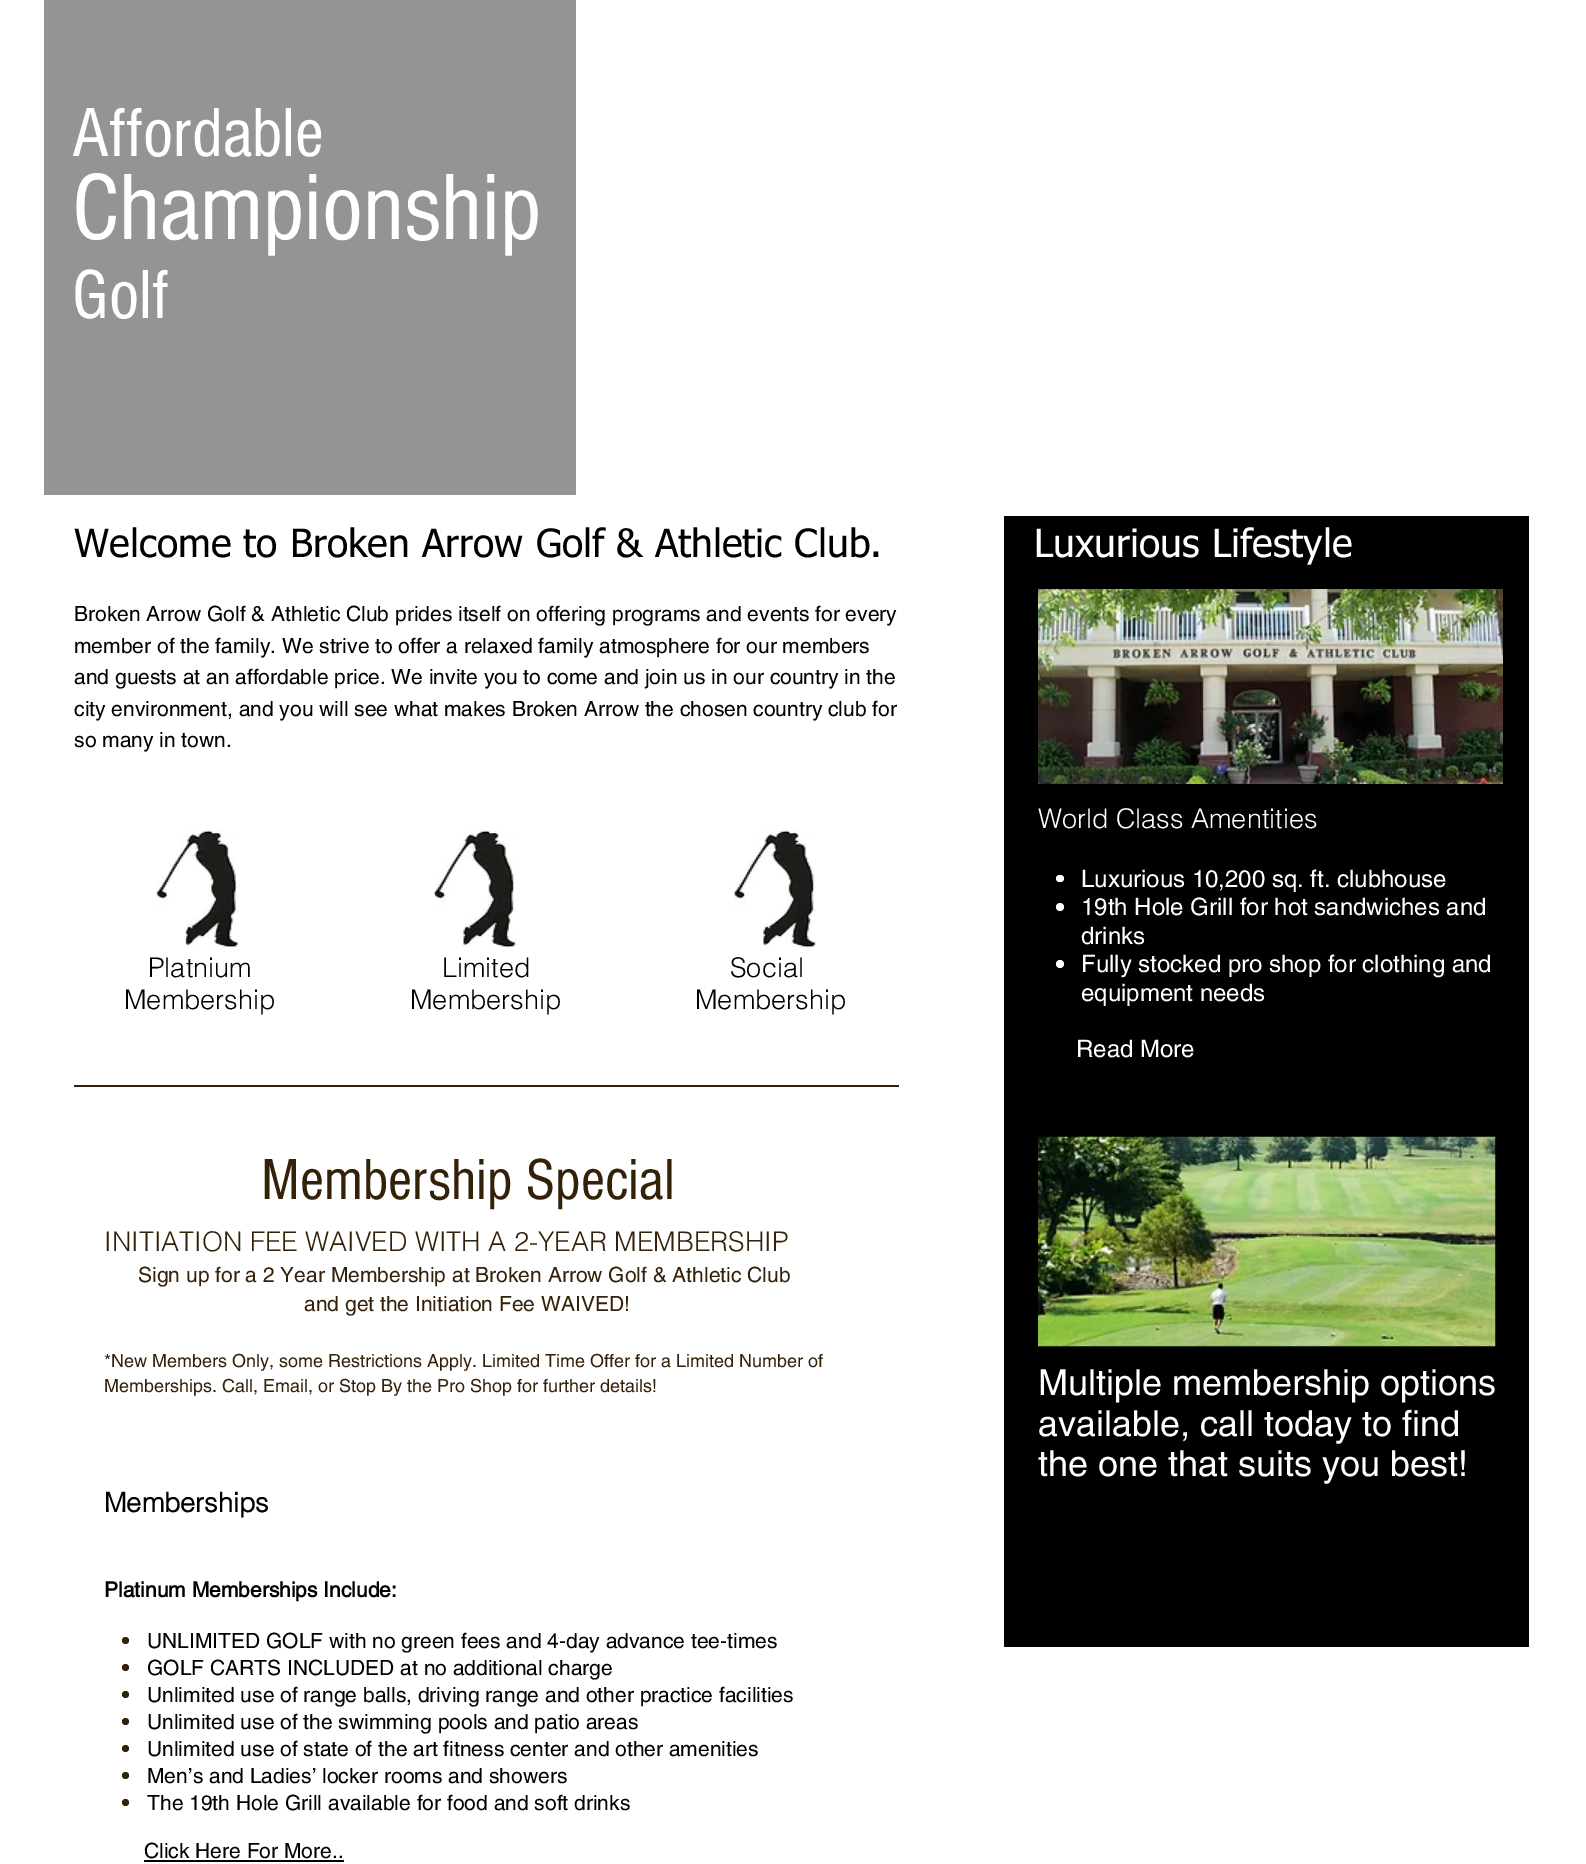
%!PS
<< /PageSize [1586 1864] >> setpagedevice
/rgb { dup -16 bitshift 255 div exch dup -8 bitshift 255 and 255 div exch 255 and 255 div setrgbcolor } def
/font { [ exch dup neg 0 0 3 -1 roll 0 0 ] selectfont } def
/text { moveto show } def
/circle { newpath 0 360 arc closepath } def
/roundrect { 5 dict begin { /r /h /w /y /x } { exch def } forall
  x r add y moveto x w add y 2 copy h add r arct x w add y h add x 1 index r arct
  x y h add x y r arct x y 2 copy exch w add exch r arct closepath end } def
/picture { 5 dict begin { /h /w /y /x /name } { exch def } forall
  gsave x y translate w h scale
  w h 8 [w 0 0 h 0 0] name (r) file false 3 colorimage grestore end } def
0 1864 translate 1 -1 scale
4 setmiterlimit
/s1 { /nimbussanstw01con-Regular 72 font 16#FFFFFF rgb } def
/s2 { /nimbussanstw01con-Regular 97.5 font 16#FFFFFF rgb } def
/s3 { /tahoma-Regular 39 font 16#000000 rgb } def
/s4 { /tahoma-Regular 39 font 16#FFFFFF rgb } def
/s5 { /helvetica-Light 27 font 16#FFFFFF rgb } def
/s6 { /helvetica-Regular 24 font 16#FFFFFF rgb } def
/s7 { /helvetica-Regular 36 font 16#FFFFFF rgb } def
/s8 { /helvetica-Regular 21 font 16#000000 rgb } def
/s9 { /helvetica-Light 27 font 16#000000 rgb } def
/s10 { /nimbussanstw01con-Regular 60 font 16#342109 rgb } def
/s11 { /helvetica-Light 27 font 16#342109 rgb } def
/s12 { /helvetica-Regular 21 font 16#342109 rgb } def
/s13 { /helvetica-Regular 18 font 16#342109 rgb } def
/s14 { /helvetica-Bold 27 font 16#000000 rgb } def
/s15 { /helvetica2-Bold 21 font 16#000000 rgb } def
16#FFFFFF rgb
0 0 1586 1864 rectfill
16#949494 rgb
44 0 532 495 rectfill
s1
(Affordable) 72 156 text
s2
(Championship) 72 239 text
s1
(Golf) 72 318 text
s3
(Welcome to Broken Arrow Golf & Athletic Club.) 74 557 text
1004 516 525 1131 rectfill
s4
(Luxurious Lifestyle) 1034 557 text
(pic1.raw) 1038 589 465 195 picture
s5
(World Class Amentities) 1038 828 text
1056 875 8 7 3.5 roundrect fill
s6
(Luxurious 10,200 sq. ft. clubhouse) 1081 887 text
1060 907 4 circle fill
(19th Hole Grill for hot sandwiches and) 1081 915 text
(drinks) 1081 944 text
1060 964 4 circle fill
(Fully stocked pro shop for clothing and) 1081 972 text
(equipment needs) 1081 1001 text
(Read More) 1076 1057 text
(pic2.raw) 1038 1136 458 211 picture
s7
(Multiple membership options) 1038 1395 text
(available, call today to find) 1038 1436 text
(the one that suits you best!) 1038 1476 text
s8
(Broken Arrow Golf & Athletic Club prides itself on offering programs and events for every) 74 621 text
(member of the family. We strive to offer a relaxed family atmosphere for our members) 74 653 text
(and guests at an affordable price. We invite you to come and join us in our country in the) 74 684 text
(city environment, and you will see what makes Broken Arrow the chosen country club for) 74 716 text
(so many in town.) 74 747 text
(pic3.raw) 156 830 83 118 picture
(pic4.raw) 433 830 83 118 picture
(pic5.raw) 733 830 83 118 picture
s9
(Platnium) 148 977 text
(Membership) 124 1009 text
(Limited) 442 977 text
(Membership) 410 1009 text
(Social) 730 977 text
(Membership) 695 1009 text
16#342109 rgb
74 1085 825 2 rectfill
s10
(Membership Special) 261 1199 text
s11
(INITIATION FEE WAIVED WITH A 2-YEAR MEMBERSHIP) 104 1251 text
s12
(Sign up for a 2 Year Membership at Broken Arrow Golf & Athletic Club) 138 1282 text
(and get the Initiation Fee WAIVED!) 304 1311 text
s13
(*New Members Only, some Restrictions Apply. Limited Time Offer for a Limited Number of) 104 1367 text
(Memberships. Call, Email, or Stop By the Pro Shop for further details!) 104 1392 text
s14
(Memberships) 104 1512 text
s15
(Platinum Memberships Include:) 104 1597 text
16#342109 rgb
125.5 1640.5 3.5 circle fill
s8
(UNLIMITED GOLF with no green fees and 4-day advance tee-times) 147 1648 text
16#342109 rgb
125.5 1667.5 3.5 circle fill
s8
(GOLF CARTS INCLUDED at no additional charge) 147 1675 text
16#342109 rgb
125.5 1694.5 3.5 circle fill
s8
(Unlimited use of range balls, driving range and other practice facilities) 147 1702 text
16#342109 rgb
125.5 1721.5 3.5 circle fill
s8
(Unlimited use of the swimming pools and patio areas) 147 1729 text
16#342109 rgb
125.5 1748.5 3.5 circle fill
s8
(Unlimited use of state of the art fitness center and other amenities) 147 1756 text
16#342109 rgb
125.5 1775.5 3.5 circle fill
s8
(Men’s and Ladies’ locker rooms and showers) 147 1783 text
16#342109 rgb
125.5 1802.5 3.5 circle fill
s8
(The 19th Hole Grill available for food and soft drinks) 147 1810 text
(Click Here For More..) 144 1858 text
144 1860 200 2 rectfill
showpage
